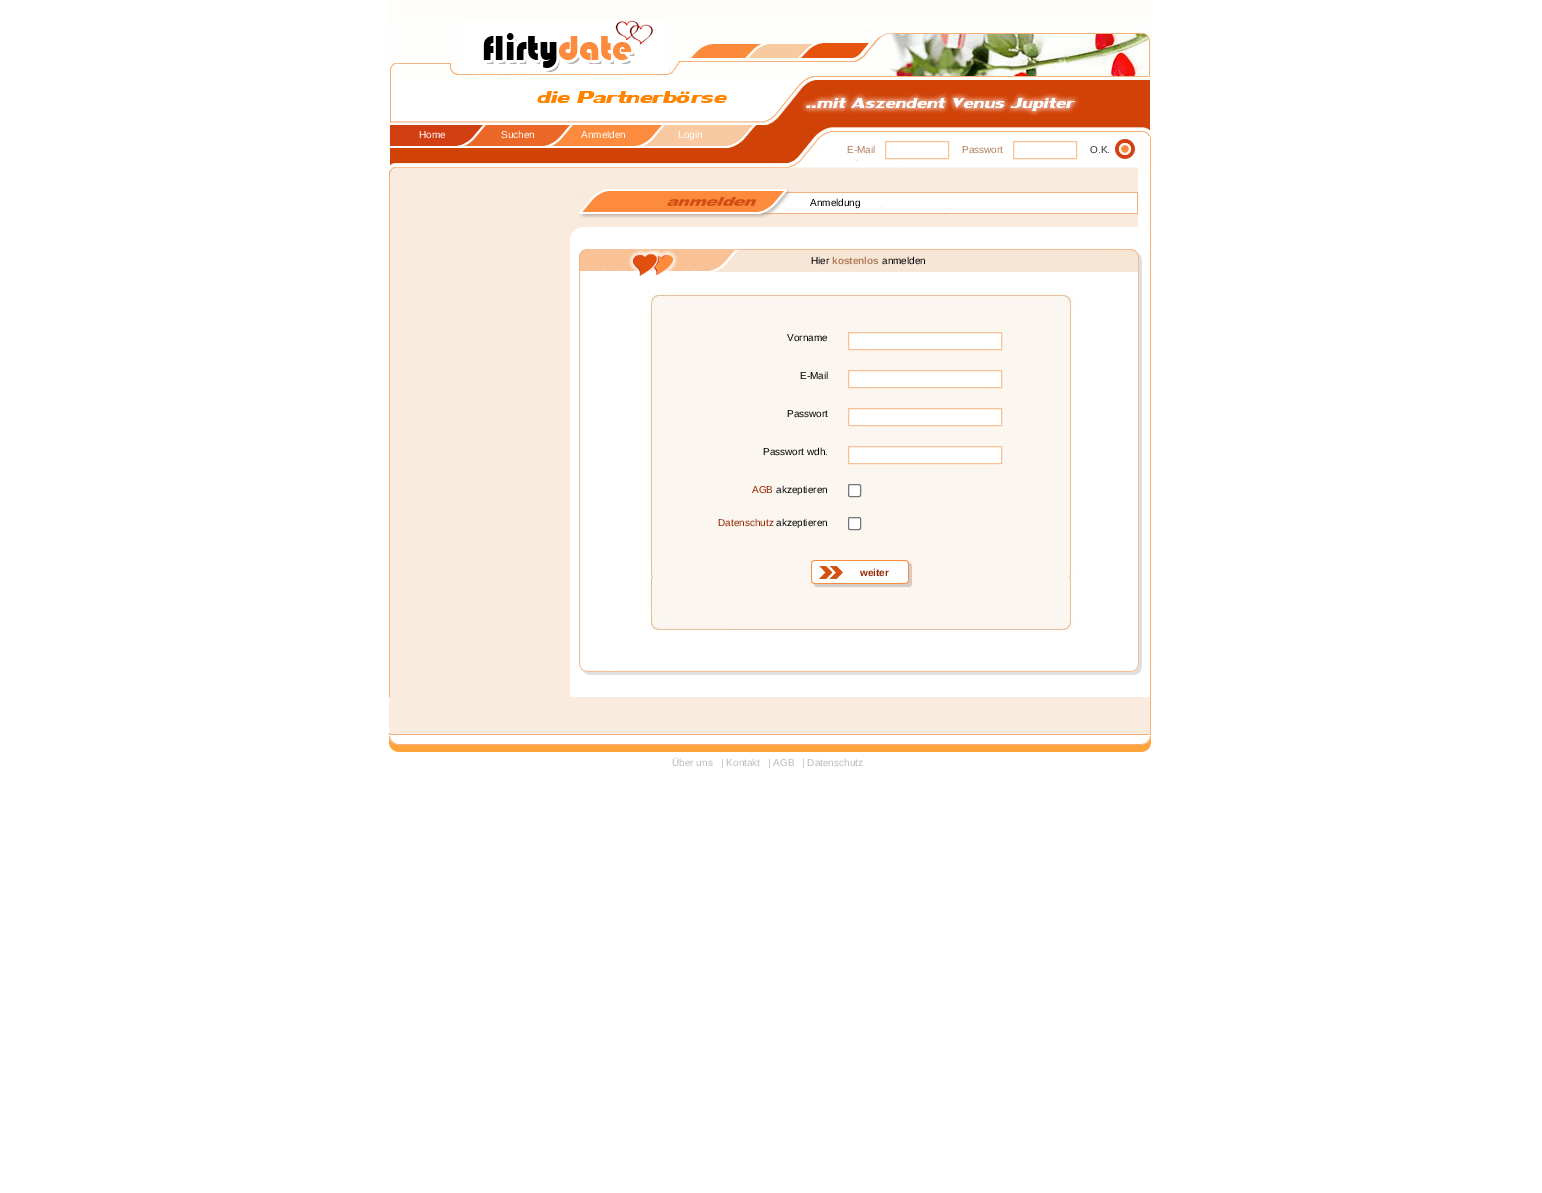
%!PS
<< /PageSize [1542 1193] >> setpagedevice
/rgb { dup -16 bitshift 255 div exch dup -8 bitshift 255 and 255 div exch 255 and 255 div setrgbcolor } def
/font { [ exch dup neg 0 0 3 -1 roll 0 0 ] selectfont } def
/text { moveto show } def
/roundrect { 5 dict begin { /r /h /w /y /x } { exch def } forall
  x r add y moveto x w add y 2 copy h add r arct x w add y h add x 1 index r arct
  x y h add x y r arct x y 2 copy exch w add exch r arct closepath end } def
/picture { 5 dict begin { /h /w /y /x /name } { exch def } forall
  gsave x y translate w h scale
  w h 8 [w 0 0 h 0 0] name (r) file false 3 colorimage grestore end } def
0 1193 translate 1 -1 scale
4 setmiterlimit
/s1 { /LiberationSans-Regular 10 font 16#FFFFFF rgb } def
/s2 { /LiberationSans-Regular 10 font 16#B27D5B rgb } def
/s3 { /LiberationSans-Regular 10 font 16#333333 rgb } def
/s4 { /LiberationSans-Regular 10 font 16#000000 rgb } def
/s5 { /LiberationSans-Bold 10 font 16#B27D5B rgb } def
/s6 { /LiberationSans-Regular 10 font 16#942700 rgb } def
/s7 { /LiberationSans-Bold 10 font 16#942700 rgb } def
/s8 { /LiberationSans-Regular 10 font 16#BBBBBB rgb } def
16#FFFFFF rgb
0 0 1542 1193 rectfill
16#FFFDF9 rgb
389 0 764 697 rectfill
16#FFFFFF rgb
389 20 763 60 rectfill
(pic1.raw) 389 21 762 59 picture
(pic2.raw) 459 20 209 54 picture
(pic3.raw) 389 80 762 107 picture
s1
(Home) 419 138 text
(Suchen) 501 138 text
(Anmelden) 581 138 text
(Login) 678 138 text
s2
(E-Mail) 847 153 text
16#F8C296 rgb
885.5 141.5 63 17 rectstroke
s2
(Passwort) 962 153 text
16#F8C296 rgb
1013.5 141.5 63 17 rectstroke
(pic4.raw) 1090 136 48 31 picture
s3
(O.K.) 1090 153 text
(pic5.raw) 389 187 762 510 picture
(pic6.raw) 570 187 568 40 picture
(pic7.raw) 667 197 89 9 picture
s4
(Anmeldung) 810 206 text
(pic8.raw) 570 227 12 12 picture
(pic9.raw) 579 272 563 392 picture
(pic10.raw) 579 249 563 23 picture
(pic11.raw) 629 250 48 26 picture
(Hier) 811 264 text
s5
(kostenlos) 832 264 text
s4
(anmelden) 882 264 text
(pic12.raw) 648 292 426 341 picture
(Vorname) 787 341 text
16#FFFFFF rgb
848.5 332.5 moveto 1001.5 332.5 lineto 1001.5 349.5 lineto 848.5 349.5 lineto closepath gsave fill grestore
16#F8C296 rgb
stroke
s4
(E-Mail) 800 379 text
16#FFFFFF rgb
848.5 370.5 moveto 1001.5 370.5 lineto 1001.5 387.5 lineto 848.5 387.5 lineto closepath gsave fill grestore
16#F8C296 rgb
stroke
s4
(Passwort) 787 417 text
16#FFFFFF rgb
848.5 408.5 moveto 1001.5 408.5 lineto 1001.5 425.5 lineto 848.5 425.5 lineto closepath gsave fill grestore
16#F8C296 rgb
stroke
s4
(Passwort wdh.) 763 455 text
16#FFFFFF rgb
848.5 446.5 moveto 1001.5 446.5 lineto 1001.5 463.5 lineto 848.5 463.5 lineto closepath gsave fill grestore
16#F8C296 rgb
stroke
s6
(AGB) 752 493 text
s4
(akzeptieren) 776 493 text
16#FFFFFF rgb
848.5 484.5 12 12 1.5 roundrect gsave fill grestore
16#767676 rgb
stroke
s6
(Datenschutz) 718 526 text
s4
(akzeptieren) 776 526 text
16#FFFFFF rgb
848.5 517.5 12 12 1.5 roundrect gsave fill grestore
16#767676 rgb
stroke
(pic13.raw) 811 560 101 28 picture
s7
(weiter) 860 576 text
(pic14.raw) 579 664 563 11 picture
16#F9EBDE rgb
389 697 761 36 rectfill
16#F5B179 rgb
1150 697 1 36 rectfill
(pic15.raw) 389 733 762 19 picture
s8
(Über uns) 672 766 text
(| Kontakt) 721 766 text
(| AGB) 768 766 text
(| Datenschutz) 802 766 text
showpage
